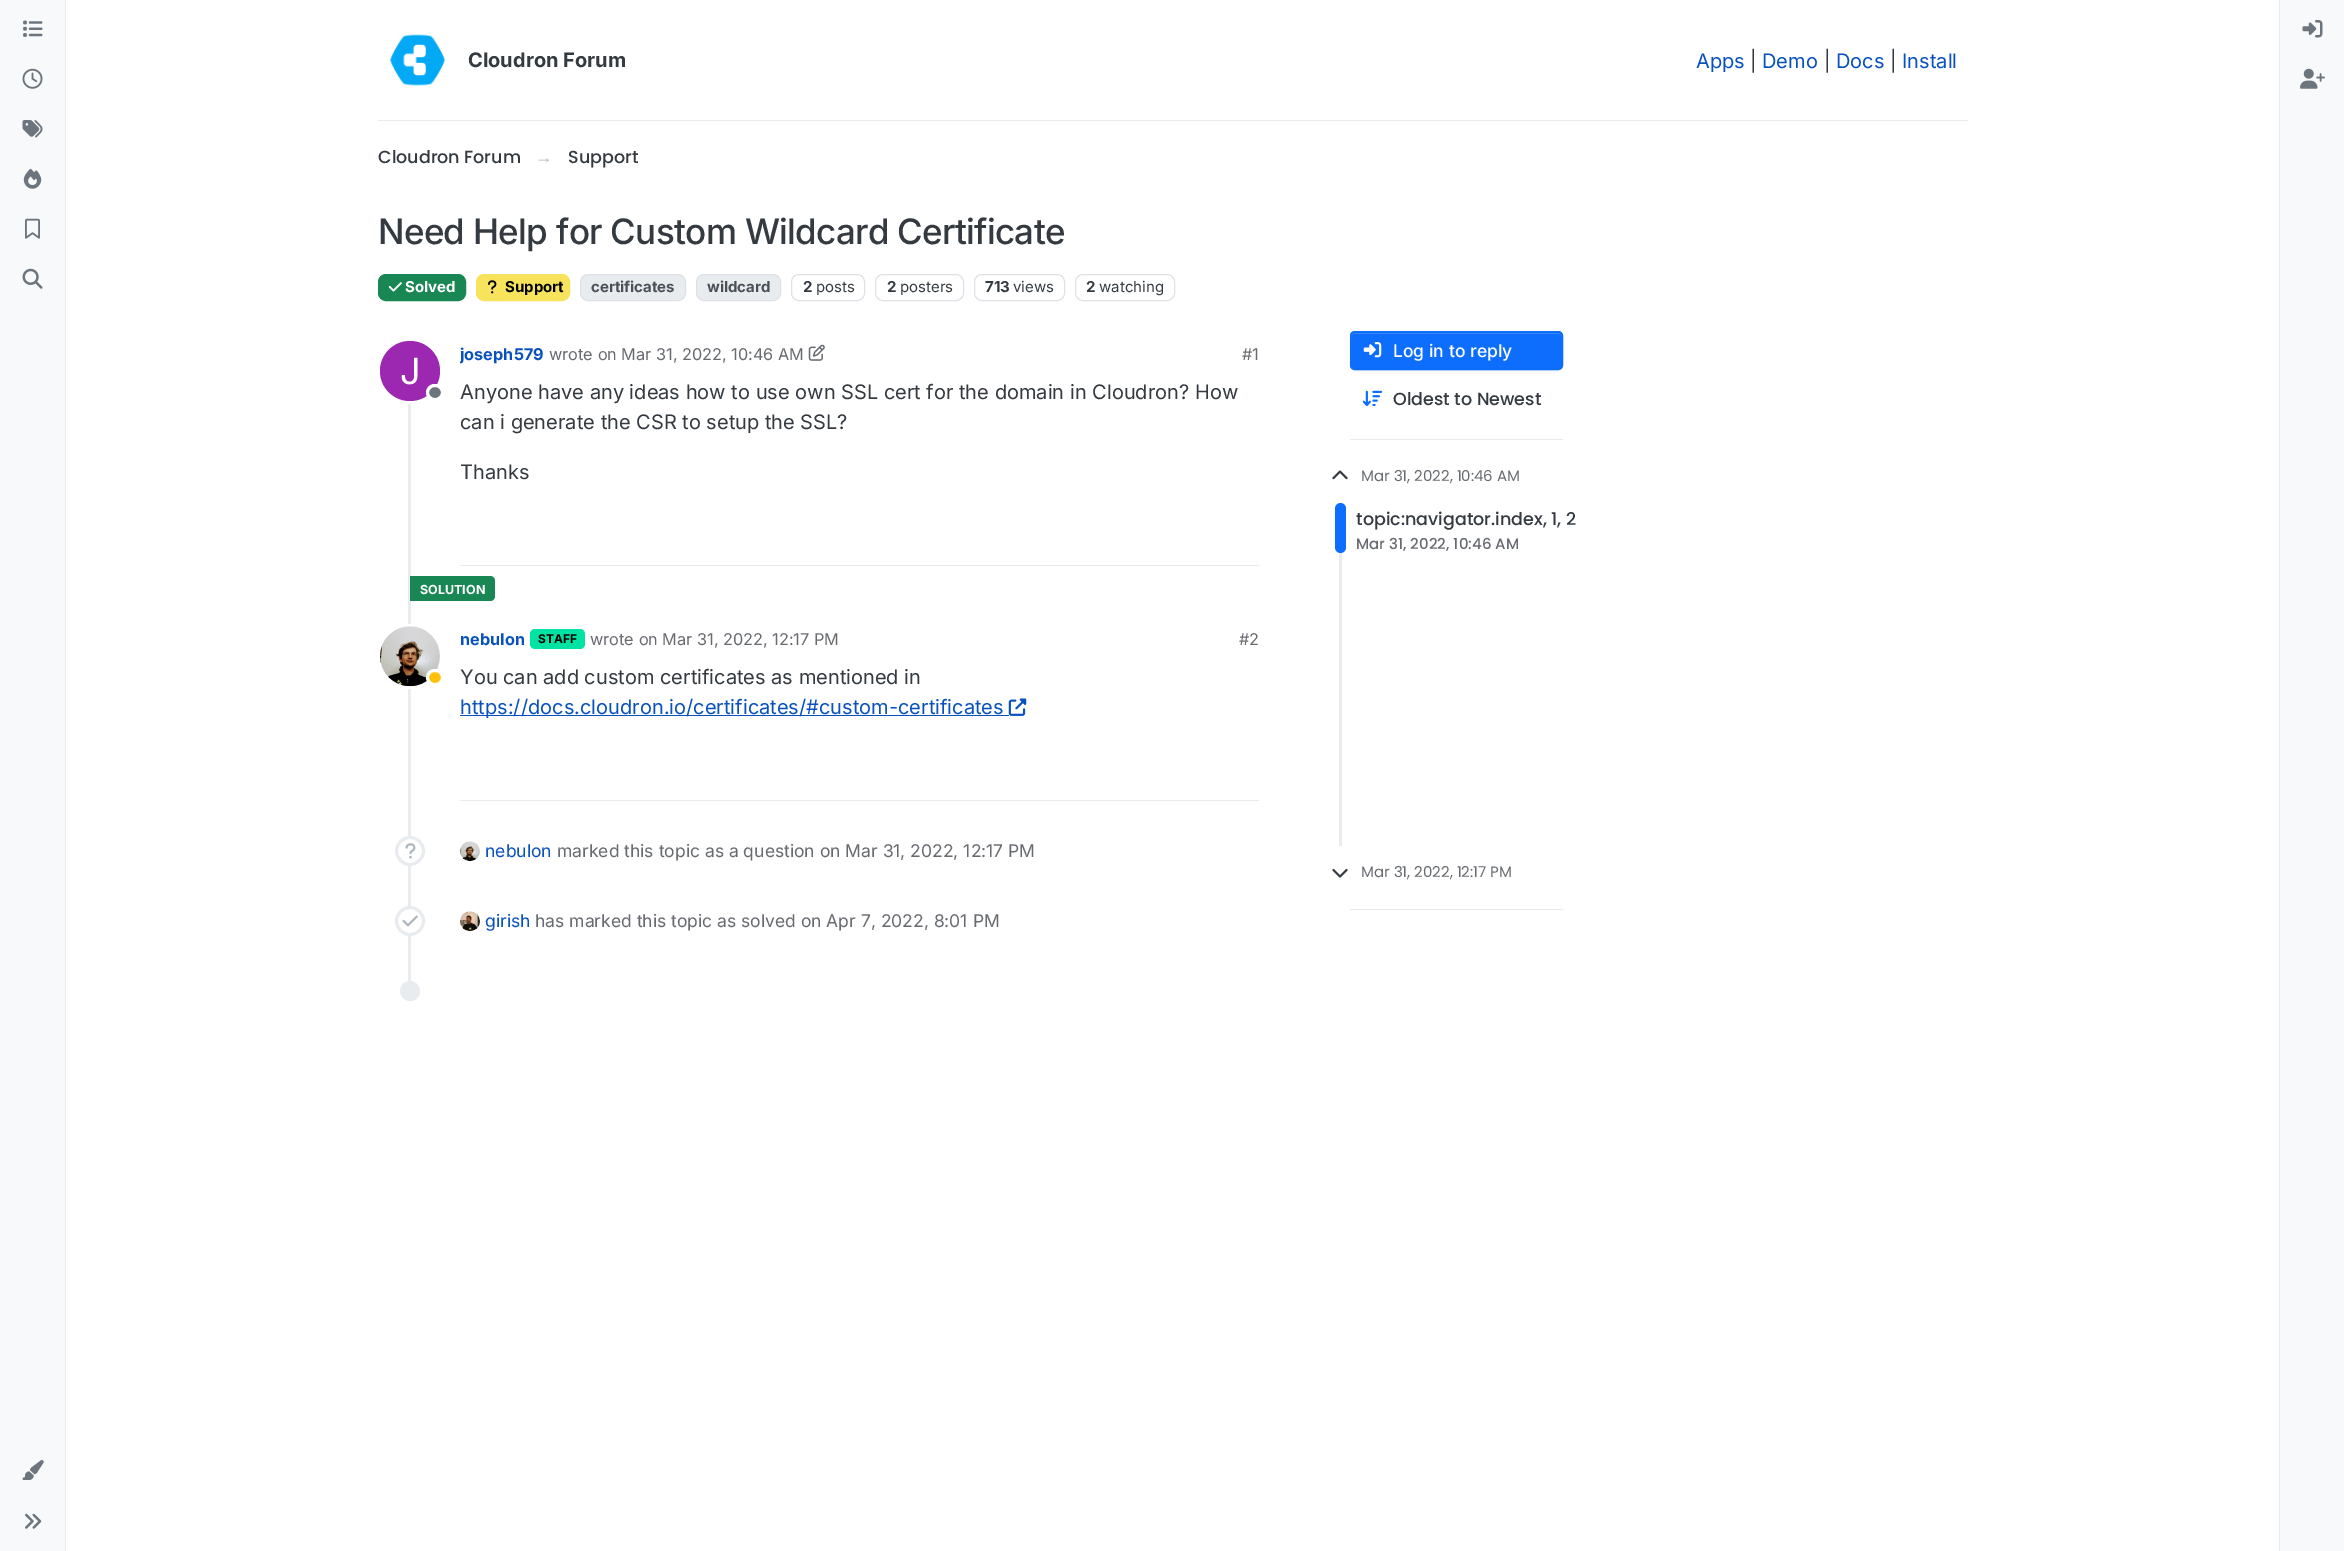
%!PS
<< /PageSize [2344 1551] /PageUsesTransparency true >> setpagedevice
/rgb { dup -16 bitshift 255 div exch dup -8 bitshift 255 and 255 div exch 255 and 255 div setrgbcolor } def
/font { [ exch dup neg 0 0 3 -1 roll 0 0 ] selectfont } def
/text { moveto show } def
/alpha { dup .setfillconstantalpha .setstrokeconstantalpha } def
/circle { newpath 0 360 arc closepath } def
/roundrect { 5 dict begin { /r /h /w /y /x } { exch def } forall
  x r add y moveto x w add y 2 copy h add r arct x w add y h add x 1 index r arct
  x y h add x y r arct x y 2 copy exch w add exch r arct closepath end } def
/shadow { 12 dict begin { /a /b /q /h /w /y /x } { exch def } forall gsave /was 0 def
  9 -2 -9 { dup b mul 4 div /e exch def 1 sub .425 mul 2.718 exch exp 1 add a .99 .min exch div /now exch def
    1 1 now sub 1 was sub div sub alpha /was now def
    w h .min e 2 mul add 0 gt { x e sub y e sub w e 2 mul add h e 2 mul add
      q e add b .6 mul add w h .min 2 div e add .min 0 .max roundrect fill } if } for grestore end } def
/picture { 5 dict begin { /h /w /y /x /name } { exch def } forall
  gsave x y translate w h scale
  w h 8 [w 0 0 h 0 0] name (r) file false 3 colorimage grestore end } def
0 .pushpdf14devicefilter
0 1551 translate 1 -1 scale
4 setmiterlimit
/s1 { /Inter-Bold 20 font 16#343A40 rgb } def
/s2 { /Inter-Regular 20 font 16#0951BE rgb } def
/s3 { /Inter-Regular 20 font 16#343A40 rgb } def
/s4 { /Poppins-Medium 17.5 font 16#343A40 rgb } def
/s5 { /LiberationSans-Regular 17.5 font 16#ADB5BD rgb } def
/s6 { /Inter-Bold 15 font 16#FFFFFF rgb } def
/s7 { /Inter-Bold 15 font 16#000000 rgb } def
/s8 { /Inter-Bold 15 font 16#495057 rgb } def
/s9 { /Inter-Bold 15 font 16#343A40 rgb } def
/s10 { /Inter-Regular 15 font 16#343A40 rgb } def
/s11 { /Inter-Regular 36 font 16#FFFFFF rgb } def
/s12 { /Inter-Bold 16.25 font 16#0951BE rgb } def
/s13 { /Inter-Regular 16.25 font 16#676B70 rgb } def
/s14 { /Inter-Bold 12.5 font 16#FFFFFF rgb } def
/s15 { /Inter-Bold 12 font 16#000000 rgb } def
/s16 { /Inter-Regular 17.5 font 16#0951BE rgb } def
/s17 { /Inter-Regular 17.5 font 16#676B70 rgb } def
/s18 { /Inter-Medium 17.5 font 16#FFFFFF rgb } def
/s19 { /Poppins-Regular 15 font 16#676B70 rgb } def
/s20 { /Poppins-Medium 15 font 16#676B70 rgb } def
16#FFFFFF rgb
0 0 2344 1551 rectfill
16#F8F9FA rgb
0 0 65 1551 rectfill
16#E9ECEF rgb
65 0 1 1551 rectfill
(pic1.raw) 23 20 20 17 picture
(pic2.raw) 22 68 21 21 picture
(pic3.raw) 22 120 21 18 picture
(pic4.raw) 23 168 19 21 picture
(pic5.raw) 25 218 15 21 picture
(pic6.raw) 22 268 21 21 picture
(pic7.raw) 22 1460 22 20 picture
(pic8.raw) 25 1513 17 16 picture
378 120 1590 1 rectfill
(pic9.raw) 390 34 55 52 picture
s1
(Cloudron Forum) 468 67 text
s2
(Apps) 1696 68 text
s3
(|) 1750 68 text
s2
(Demo) 1762 68 text
s3
(|) 1824 68 text
s2
(Docs) 1836 68 text
s3
(|) 1890 68 text
s2
(Install) 1902 68 text
s4
(Cloudron Forum) 378 163 text
s5
(→) 535 163 text
s4
(Support) 568 163 text
/Inter-Medium 35 font
378 244 moveto -0.7 0 (Need Help for Custom Wildcard Certificate) ashow
16#198754 rgb
378.5 274.5 87 26 7.5 roundrect gsave fill grestore
stroke
(pic10.raw) 388 282 14 10 picture
s6
(Solved) 405 292 text
16#F8E45C rgb
476.5 274.5 93 26 7.5 roundrect gsave fill grestore
stroke
(pic11.raw) 488 280 9 14 picture
s7
(Support) 505 292 text
16#E9ECEF rgb
580.5 274.5 105 26 7.5 roundrect gsave fill grestore
16#DEE2E6 rgb
stroke
s8
(certificates) 591 292 text
16#E9ECEF rgb
696.5 274.5 84 26 7.5 roundrect gsave fill grestore
16#DEE2E6 rgb
stroke
s8
(wildcard) 707 292 text
16#DEE2E6 rgb
791.5 274.5 73 26 7.5 roundrect stroke
s9
(2) 803 292 text
s10
(posts) 816 292 text
16#DEE2E6 rgb
875.5 274.5 88 26 7.5 roundrect stroke
s9
(2) 887 292 text
s10
(posters) 900 292 text
16#DEE2E6 rgb
974.5 274.5 90 26 7.5 roundrect stroke
s9
(713) 985 292 text
s10
(views) 1013 292 text
16#DEE2E6 rgb
1075.5 274.5 99 26 7.5 roundrect stroke
s9
(2) 1086 292 text
s10
(watching) 1099 292 text
16#E9ECEF rgb
408 400 3 581 rectfill
16#FFFFFF rgb
3 setlinewidth
410.5 371.5 31 circle stroke
16#9C27B0 rgb
410 371 30 circle fill
s11
(J) 400 384 text
16#6C757D rgb
427.5 385.5 15 14 7 roundrect gsave fill grestore
16#FFFFFF rgb
stroke
gsave
460 341 84 25 rectclip
s12
(joseph579) 460 360 text
grestore
s13
(wrote on Mar 31, 2022, 10:46 AM) 549 360 text
(pic12.raw) 808 344 17 17 picture
(#1) 1242 360 text
s3
(Anyone have any ideas how to use own SSL cert for the domain in Cloudron? How) 460 399 text
(can i generate the CSR to setup the SSL?) 460 429 text
(Thanks) 460 479 text
16#E9ECEF rgb
460 565 799 1 rectfill
16#198754 rgb
410 576 moveto 490 576 lineto 493 576 495 578 495 581 curveto 495 596 lineto 495 599 493 601 490 601 curveto 410 601 lineto closepath fill
s14
(SOLUTION) 420 594 text
410.5 656.5 31 circle stroke
(pic13.raw) 380 626 60 61 picture
16#FFC107 rgb
427.5 670.5 15 14 7 roundrect gsave fill grestore
16#FFFFFF rgb
stroke
s12
(nebulon) 460 645 text
16#00E3A3 rgb
530 629 55 20 5 roundrect fill
s15
(STAFF) 538 643 text
s13
(wrote on Mar 31, 2022, 12:17 PM) 590 645 text
(#2) 1239 645 text
s3
(You can add custom certificates as mentioned in) 460 684 text
16#0951BE rgb
460 715 549 1 rectfill
(https://docs.cloudron.io/certificates/#custom-certificates) 460 714 text
(pic14.raw) 1008 698 19 18 picture
16#E9ECEF rgb
460 800 799 1 rectfill
16#FFFFFF rgb
410 851 13.5 circle gsave fill grestore
16#E9ECEF rgb
stroke
(pic15.raw) 405 843 11 16 picture
(pic16.raw) 460 841 20 21 picture
s16
(nebulon) 485 857 text
s17
(marked this topic as a question on Mar 31, 2022, 12:17 PM) 557 857 text
16#FFFFFF rgb
410 921 13.5 circle gsave fill grestore
16#E9ECEF rgb
stroke
(pic17.raw) 402 915 16 12 picture
(pic18.raw) 460 911 20 21 picture
s16
(girish) 485 927 text
s17
(has marked this topic as solved on Apr 7, 2022, 8:01 PM) 535 927 text
16#E9ECEF rgb
410 991 10 circle fill
16#000000 rgb
1350 333 213 38 5 0.5 0.07 shadow
16#0D6EFD rgb
1350 331 213 39 5 roundrect fill
16#3184FD rgb
1355 334 moveto 1558 334 lineto 1560 334 1561 335 1561 338 curveto 1561 337 lineto 1561 335 1559 333 1557 333 curveto 1355 333 lineto 1353 333 1351 335 1351 337 curveto 1351 338 lineto 1351 335 1353 334 1355 334 curveto closepath fill
16#0D6EFD rgb
1 setlinewidth
1350.5 331.5 212 38 4.5 roundrect stroke
(pic19.raw) 1363 342 19 16 picture
s18
(Log in to reply) 1393 357 text
(pic20.raw) 1362 390 21 17 picture
s4
(Oldest to Newest) 1393 405 text
16#E9ECEF rgb
1350 439 213 1 rectfill
(pic21.raw) 1332 470 16 10 picture
s19
(Mar 31, 2022, 10:46 AM) 1361 481 text
16#E9ECEF rgb
1339 503 3 343 rectfill
16#0D6EFD rgb
1335 503 11 50 5.5 roundrect fill
s4
(topic:navigator.index, 1, 2) 1356 525 text
s20
(Mar 31, 2022, 10:46 AM) 1356 549 text
(pic22.raw) 1332 868 16 10 picture
s19
(Mar 31, 2022, 12:17 PM) 1361 877 text
16#E9ECEF rgb
1350 909 213 1 rectfill
16#F8F9FA rgb
2280 0 64 1551 rectfill
16#E9ECEF rgb
2279 0 1 1551 rectfill
(pic23.raw) 2302 20 21 18 picture
(pic24.raw) 2300 68 25 21 picture
.poppdf14devicefilter showpage
